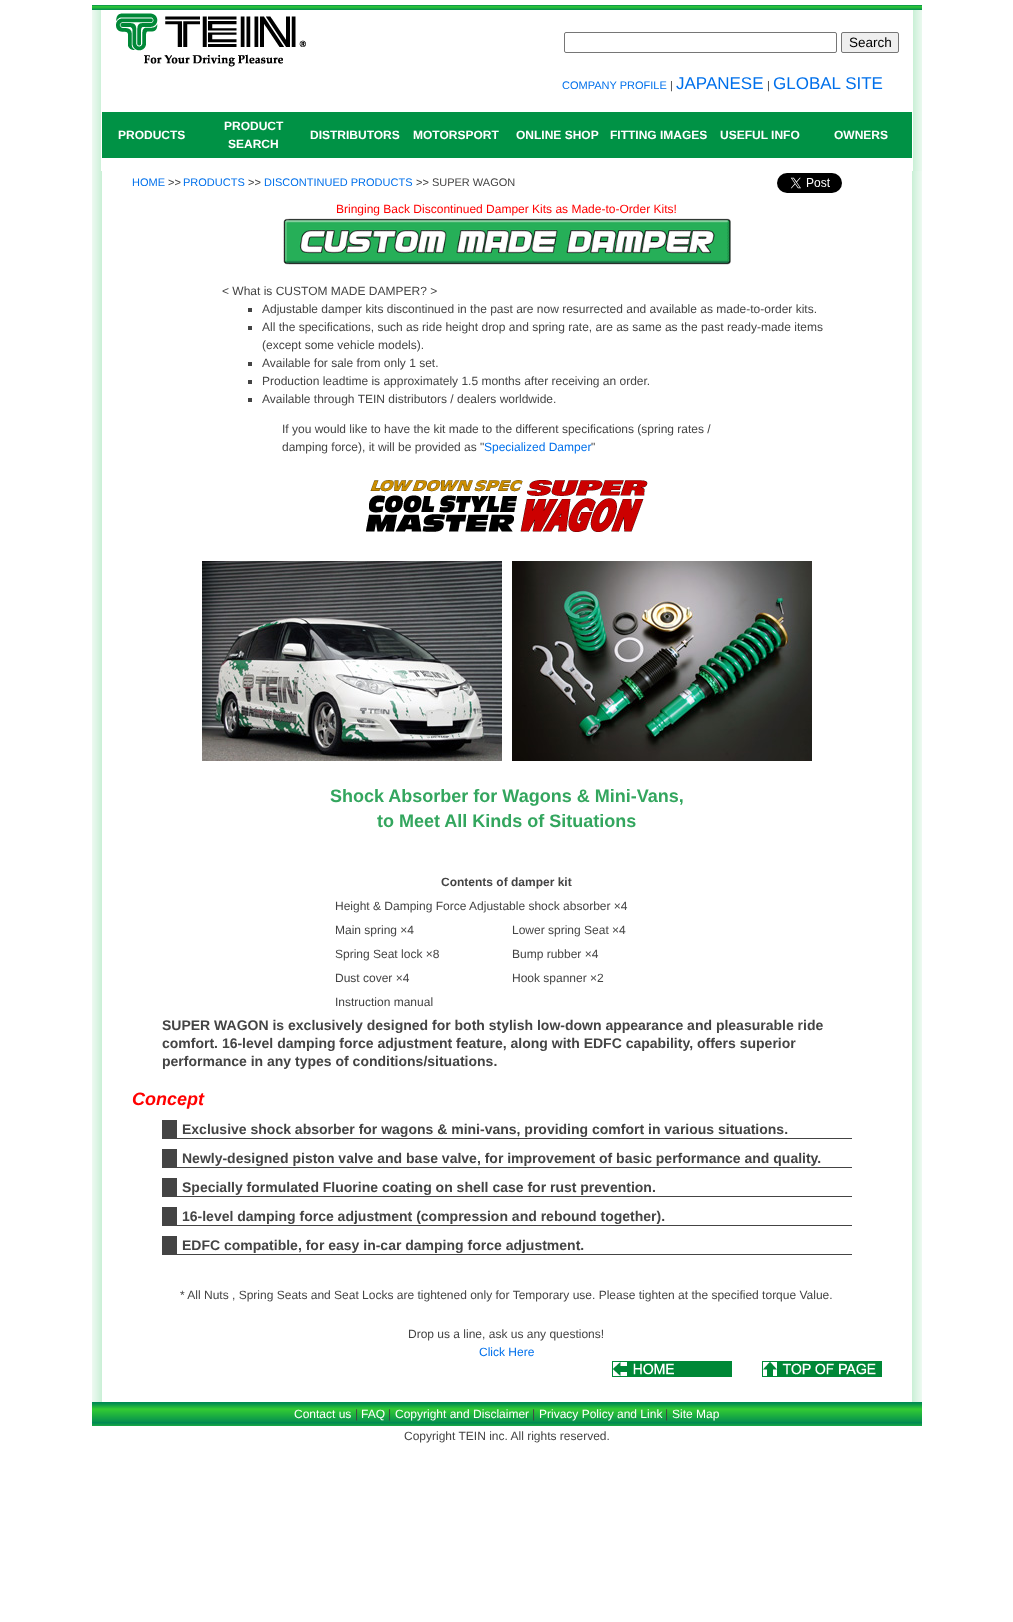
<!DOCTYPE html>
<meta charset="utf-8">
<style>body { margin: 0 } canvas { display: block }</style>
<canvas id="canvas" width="1013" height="1622"></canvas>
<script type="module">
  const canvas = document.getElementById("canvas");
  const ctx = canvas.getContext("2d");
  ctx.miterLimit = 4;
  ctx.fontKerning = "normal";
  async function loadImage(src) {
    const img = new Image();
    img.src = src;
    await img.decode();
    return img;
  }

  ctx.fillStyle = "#ffffff";
  ctx.fillRect(0, 0, 1013, 1622);
  ctx.drawImage(await loadImage("img1.png"), 92, 5, 830, 5);
  ctx.drawImage(await loadImage("img2.png"), 92, 10, 9, 161);
  ctx.drawImage(await loadImage("img3.png"), 116, 13, 190, 54);
  ctx.beginPath();
  ctx.roundRect(564.5, 32.5, 272, 20, 1.5);
  ctx.strokeStyle = "#767676";
  ctx.stroke();
  ctx.fillStyle = "#efefef";
  ctx.beginPath();
  ctx.roundRect(841.5, 32.5, 57, 20, 1.5);
  ctx.fill();
  ctx.stroke();
  ctx.font = "13.5px Liberation Sans";
  ctx.fillStyle = "#000000";
  ctx.fillText("Search", 849, 47);
  ctx.font = "11px Liberation Sans";
  ctx.fillStyle = "#0070eb";
  ctx.fillText("COMPANY PROFILE", 562, 89);
  ctx.fillStyle = "#444444";
  ctx.fillText("|", 670, 89);
  ctx.font = "17px Liberation Sans";
  ctx.fillStyle = "#0070eb";
  ctx.fillText("JAPANESE", 676, 89);
  ctx.font = "11px Liberation Sans";
  ctx.fillStyle = "#444444";
  ctx.fillText("|", 767, 89);
  ctx.font = "17px Liberation Sans";
  ctx.fillStyle = "#0070eb";
  ctx.fillText("GLOBAL SITE", 773, 89);
  ctx.fillStyle = "#009245";
  ctx.fillRect(102, 112, 810, 46);
  ctx.font = "bold 12px Liberation Sans";
  ctx.fillStyle = "#ffffff";
  ctx.fillText("PRODUCTS", 118, 139);
  ctx.fillText("PRODUCT", 224, 130);
  ctx.fillText("SEARCH", 228, 148);
  ctx.fillText("DISTRIBUTORS", 310, 139);
  ctx.fillText("MOTORSPORT", 413, 139);
  ctx.fillText("ONLINE SHOP", 516, 139);
  ctx.fillText("FITTING IMAGES", 610, 139);
  ctx.fillText("USEFUL INFO", 720, 139);
  ctx.fillText("OWNERS", 834, 139);
  ctx.drawImage(await loadImage("img4.png"), 913, 10, 9, 161);
  ctx.drawImage(await loadImage("img5.png"), 92, 171, 10, 1231);
  ctx.font = "11px Liberation Sans";
  ctx.fillStyle = "#0070eb";
  ctx.fillText("HOME", 132, 186);
  ctx.fillStyle = "#444444";
  ctx.fillText(">>", 168, 186);
  ctx.fillStyle = "#0070eb";
  ctx.fillText("PRODUCTS", 183, 186);
  ctx.fillStyle = "#444444";
  ctx.fillText(">>", 248, 186);
  ctx.fillStyle = "#0070eb";
  ctx.fillText("DISCONTINUED PRODUCTS", 264, 186);
  ctx.fillStyle = "#444444";
  ctx.fillText(">> SUPER WAGON", 416, 186);
  ctx.drawImage(await loadImage("img6.png"), 777, 173, 65, 20);
  ctx.font = "12px Liberation Sans";
  ctx.fillStyle = "#ff0000";
  ctx.fillText("Bringing Back Discontinued Damper Kits as Made-to-Order Kits!", 336, 213);
  ctx.drawImage(await loadImage("img7.png"), 283, 218, 448, 47);
  ctx.fillStyle = "#444444";
  ctx.fillText("< What is CUSTOM MADE DAMPER? >", 222, 295);
  ctx.fillRect(248, 308, 4, 4);
  ctx.fillText("Adjustable damper kits discontinued in the past are now resurrected and available as made-to-order kits.", 262, 313);
  ctx.fillRect(248, 326, 4, 4);
  ctx.fillText("All the specifications, such as ride height drop and spring rate, are as same as the past ready-made items", 262, 331);
  ctx.fillText("(except some vehicle models).", 262, 349);
  ctx.fillRect(248, 362, 4, 4);
  ctx.fillText("Available for sale from only 1 set.", 262, 367);
  ctx.fillRect(248, 380, 4, 4);
  ctx.fillText("Production leadtime is approximately 1.5 months after receiving an order.", 262, 385);
  ctx.fillRect(248, 398, 4, 4);
  ctx.fillText("Available through TEIN distributors / dealers worldwide.", 262, 403);
  ctx.fillText("If you would like to have the kit made to the different specifications (spring rates /", 282, 433);
  ctx.fillText("damping force), it will be provided as \"", 282, 451);
  ctx.fillStyle = "#0070eb";
  ctx.fillText("Specialized Damper", 484, 451);
  ctx.fillStyle = "#444444";
  ctx.fillText("\"", 591, 451);
  ctx.drawImage(await loadImage("img8.png"), 366, 480, 282, 52);
  ctx.drawImage(await loadImage("img9.png"), 202, 561, 300, 200);
  ctx.drawImage(await loadImage("img10.png"), 512, 561, 300, 200);
  ctx.font = "bold 18px Liberation Sans";
  ctx.fillStyle = "#33a65e";
  ctx.fillText("Shock Absorber for Wagons & Mini-Vans,", 330, 802);
  ctx.fillText("to Meet All Kinds of Situations", 377, 827);
  ctx.font = "bold 12px Liberation Sans";
  ctx.fillStyle = "#444444";
  ctx.fillText("Contents of damper kit", 441, 886);
  ctx.font = "12px Liberation Sans";
  ctx.fillText("Height & Damping Force Adjustable shock absorber ×4", 335, 910);
  ctx.fillText("Main spring ×4", 335, 934);
  ctx.fillText("Lower spring Seat ×4", 512, 934);
  ctx.fillText("Spring Seat lock ×8", 335, 958);
  ctx.fillText("Bump rubber ×4", 512, 958);
  ctx.fillText("Dust cover ×4", 335, 982);
  ctx.fillText("Hook spanner ×2", 512, 982);
  ctx.fillText("Instruction manual", 335, 1006);
  ctx.font = "bold 14px Liberation Sans";
  ctx.fillText("SUPER WAGON is exclusively designed for both stylish low-down appearance and pleasurable ride", 162, 1030);
  ctx.fillText("comfort. 16-level damping force adjustment feature, along with EDFC capability, offers superior", 162, 1048);
  ctx.fillText("performance in any types of conditions/situations.", 162, 1066);
  ctx.font = "italic bold 18px Liberation Sans";
  ctx.fillStyle = "#ff0000";
  ctx.fillText("Concept", 132, 1105);
  ctx.fillStyle = "#444444";
  ctx.fillRect(177, 1138, 675, 1);
  ctx.fillRect(162, 1120, 15, 19);
  ctx.font = "bold 14px Liberation Sans";
  ctx.fillText("Exclusive shock absorber for wagons & mini-vans, providing comfort in various situations.", 182, 1134);
  ctx.fillRect(177, 1167, 675, 1);
  ctx.fillRect(162, 1149, 15, 19);
  ctx.fillText("Newly-designed piston valve and base valve, for improvement of basic performance and quality.", 182, 1163);
  ctx.fillRect(177, 1196, 675, 1);
  ctx.fillRect(162, 1178, 15, 19);
  ctx.fillText("Specially formulated Fluorine coating on shell case for rust prevention.", 182, 1192);
  ctx.fillRect(177, 1225, 675, 1);
  ctx.fillRect(162, 1207, 15, 19);
  ctx.fillText("16-level damping force adjustment (compression and rebound together).", 182, 1221);
  ctx.fillRect(177, 1254, 675, 1);
  ctx.fillRect(162, 1236, 15, 19);
  ctx.fillText("EDFC compatible, for easy in-car damping force adjustment.", 182, 1250);
  ctx.font = "12px Liberation Sans";
  ctx.fillText("* All Nuts , Spring Seats and Seat Locks are tightened only for Temporary use. Please tighten at the specified torque Value.", 180, 1299);
  ctx.fillText("Drop us a line, ask us any questions!", 408, 1338);
  ctx.fillStyle = "#0070eb";
  ctx.fillText("Click Here", 479, 1356);
  ctx.drawImage(await loadImage("img11.png"), 612, 1361, 120, 16);
  ctx.drawImage(await loadImage("img12.png"), 762, 1361, 120, 16);
  ctx.drawImage(await loadImage("img13.png"), 912, 171, 10, 1231);
  ctx.drawImage(await loadImage("img14.png"), 92, 1402, 830, 24);
  ctx.fillStyle = "#ffffff";
  ctx.fillText("Contact us", 294, 1418);
  ctx.fillStyle = "#444444";
  ctx.fillText("|", 355, 1418);
  ctx.fillStyle = "#ffffff";
  ctx.fillText("FAQ", 361, 1418);
  ctx.fillStyle = "#444444";
  ctx.fillText("|", 388, 1418);
  ctx.fillStyle = "#ffffff";
  ctx.fillText("Copyright and Disclaimer", 395, 1418);
  ctx.fillStyle = "#444444";
  ctx.fillText("|", 532, 1418);
  ctx.fillStyle = "#ffffff";
  ctx.fillText("Privacy Policy and Link", 539, 1418);
  ctx.fillStyle = "#444444";
  ctx.fillText("|", 665, 1418);
  ctx.fillStyle = "#ffffff";
  ctx.fillText("Site Map", 672, 1418);
  ctx.fillStyle = "#444444";
  ctx.fillText("Copyright TEIN inc. All rights reserved.", 404, 1440);
</script>
